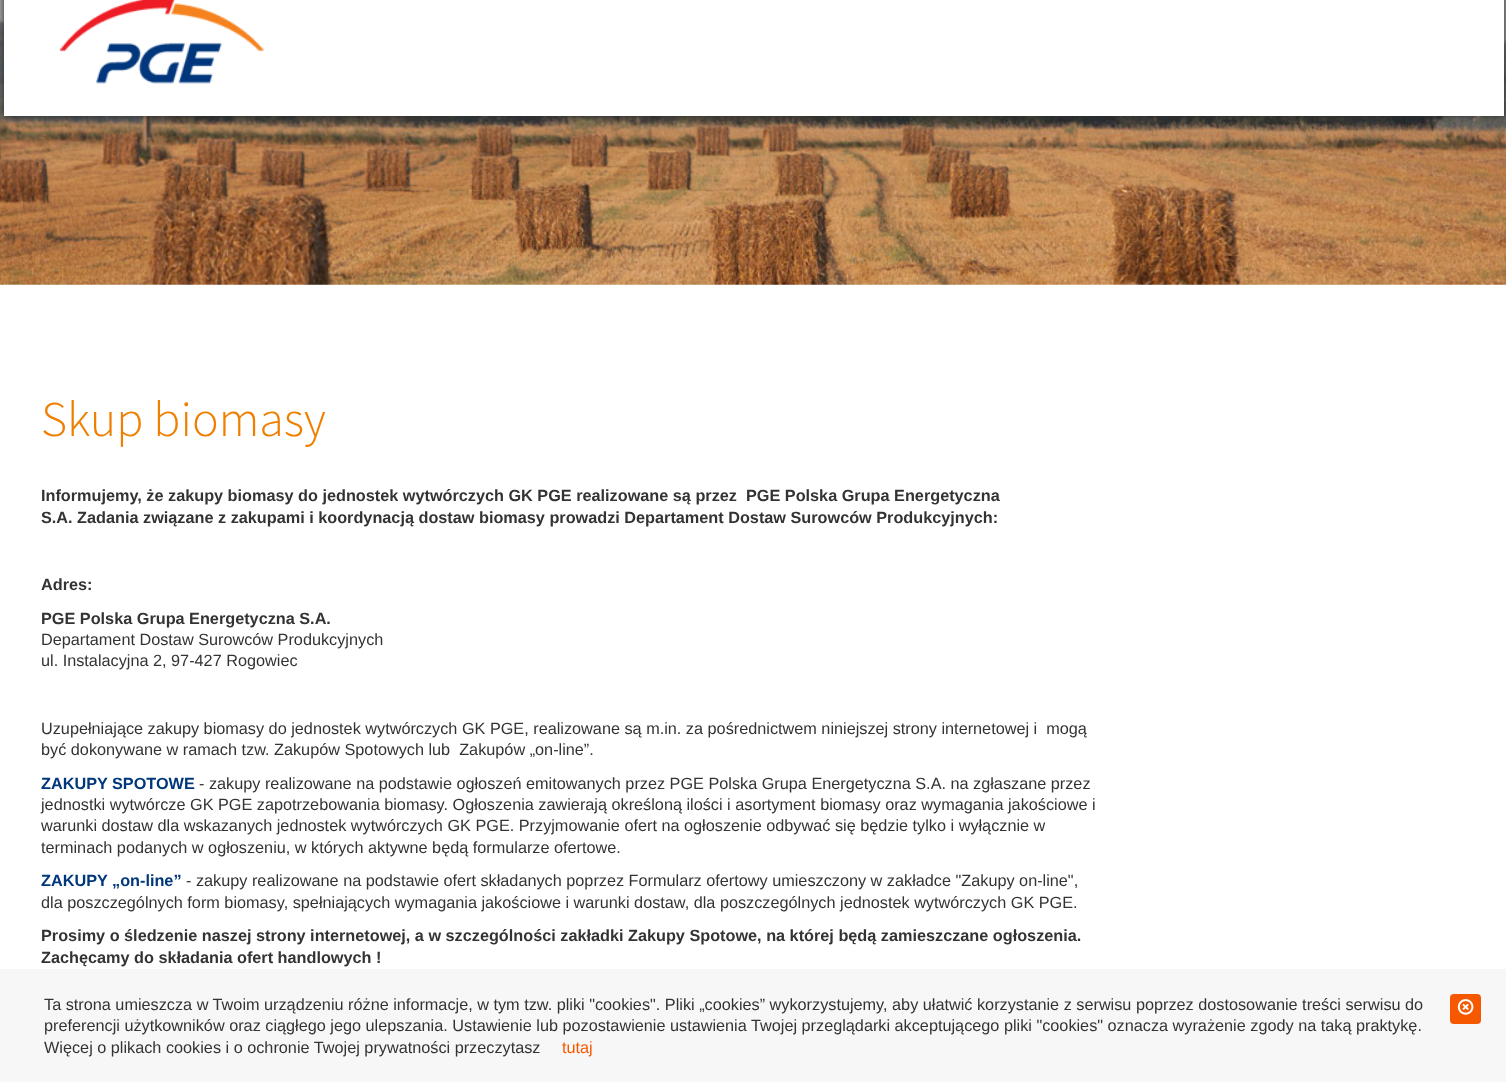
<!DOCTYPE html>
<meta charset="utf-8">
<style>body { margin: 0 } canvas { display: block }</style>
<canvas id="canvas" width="1506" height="1082"></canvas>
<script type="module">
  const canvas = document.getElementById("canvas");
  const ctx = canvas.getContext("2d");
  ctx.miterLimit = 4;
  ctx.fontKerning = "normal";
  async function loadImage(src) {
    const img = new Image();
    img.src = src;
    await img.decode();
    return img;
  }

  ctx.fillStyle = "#ffffff";
  ctx.fillRect(0, 0, 1506, 1082);
  ctx.drawImage(await loadImage("img1.png"), 0, 0, 1506, 285);
  ctx.fillStyle = "#2b2b2b";
  ctx.filter = "blur(3px)";
  ctx.beginPath();
  ctx.rect(4, -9, 1500, 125);
  ctx.fill();
  ctx.filter = "none";
  ctx.fillStyle = "#ffffff";
  ctx.fillRect(4, 0, 1500, 116);
  ctx.drawImage(await loadImage("img2.png"), 60, 0, 204, 84);
  ctx.font = "300 50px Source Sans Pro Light";
  ctx.fillStyle = "#ef7f00";
  ctx.fillText("Skup biomasy", 41, 436);
  ctx.font = "bold 16.25px Liberation Sans";
  ctx.fillStyle = "#333333";
  ctx.fillText("Informujemy, że zakupy biomasy do jednostek wytwórczych GK PGE realizowane są przez  PGE Polska Grupa Energetyczna", 41, 501);
  ctx.fillText("S.A. Zadania związane z zakupami i koordynacją dostaw biomasy prowadzi Departament Dostaw Surowców Produkcyjnych:", 41, 523);
  ctx.fillText("Adres:", 41, 590);
  ctx.fillText("PGE Polska Grupa Energetyczna S.A.", 41, 624);
  ctx.font = "16.25px Liberation Sans";
  ctx.fillText("Departament Dostaw Surowców Produkcyjnych", 41, 645);
  ctx.fillText("ul. Instalacyjna 2, 97-427 Rogowiec", 41, 666);
  ctx.fillText("Uzupełniające zakupy biomasy do jednostek wytwórczych GK PGE, realizowane są m.in. za pośrednictwem niniejszej strony internetowej i  mogą", 41, 734);
  ctx.fillText("być dokonywane w ramach tzw. Zakupów Spotowych lub  Zakupów „on-line”.", 41, 755);
  ctx.font = "bold 16.25px Liberation Sans";
  ctx.fillStyle = "#00377b";
  ctx.fillText("ZAKUPY SPOTOWE", 41, 789);
  ctx.font = "16.25px Liberation Sans";
  ctx.fillStyle = "#333333";
  ctx.fillText("- zakupy realizowane na podstawie ogłoszeń emitowanych przez PGE Polska Grupa Energetyczna S.A. na zgłaszane przez", 199, 789);
  ctx.fillText("jednostki wytwórcze GK PGE zapotrzebowania biomasy. Ogłoszenia zawierają określoną ilości i asortyment biomasy oraz wymagania jakościowe i", 41, 810);
  ctx.fillText("warunki dostaw dla wskazanych jednostek wytwórczych GK PGE. Przyjmowanie ofert na ogłoszenie odbywać się będzie tylko i wyłącznie w", 41, 831);
  ctx.fillText("terminach podanych w ogłoszeniu, w których aktywne będą formularze ofertowe.", 41, 853);
  ctx.font = "bold 16.25px Liberation Sans";
  ctx.fillStyle = "#00377b";
  ctx.fillText("ZAKUPY „on-line”", 41, 886);
  ctx.font = "16.25px Liberation Sans";
  ctx.fillStyle = "#333333";
  ctx.fillText("- zakupy realizowane na podstawie ofert składanych poprzez Formularz ofertowy umieszczony w zakładce \"Zakupy on-line\",", 186, 886);
  ctx.fillText("dla poszczególnych form biomasy, spełniających wymagania jakościowe i warunki dostaw, dla poszczególnych jednostek wytwórczych GK PGE.", 41, 908);
  ctx.font = "bold 16.25px Liberation Sans";
  ctx.fillText("Prosimy o śledzenie naszej strony internetowej, a w szczególności zakładki Zakupy Spotowe, na której będą zamieszczane ogłoszenia.", 41, 941);
  ctx.fillText("Zachęcamy do składania ofert handlowych !", 41, 963);
  ctx.fillStyle = "#f7f7f7";
  ctx.fillRect(0, 969, 1506, 113);
  ctx.font = "16.25px Liberation Sans";
  ctx.fillStyle = "#333333";
  ctx.fillText("Ta strona umieszcza w Twoim urządzeniu różne informacje, w tym tzw. pliki \"cookies\". Pliki „cookies” wykorzystujemy, aby ułatwić korzystanie z serwisu poprzez dostosowanie treści serwisu do", 44, 1010);
  ctx.fillText("preferencji użytkowników oraz ciągłego jego ulepszania. Ustawienie lub pozostawienie ustawienia Twojej przeglądarki akceptującego pliki \"cookies\" oznacza wyrażenie zgody na taką praktykę.", 44, 1031);
  ctx.fillText("Więcej o plikach cookies i o ochronie Twojej prywatności przeczytasz", 44, 1053);
  ctx.fillStyle = "#f65800";
  ctx.fillText("tutaj", 562, 1053);
  ctx.beginPath();
  ctx.roundRect(1450, 994, 31, 30, 4);
  ctx.fill();
  ctx.drawImage(await loadImage("img3.png"), 1457, 999, 17, 16);
</script>
